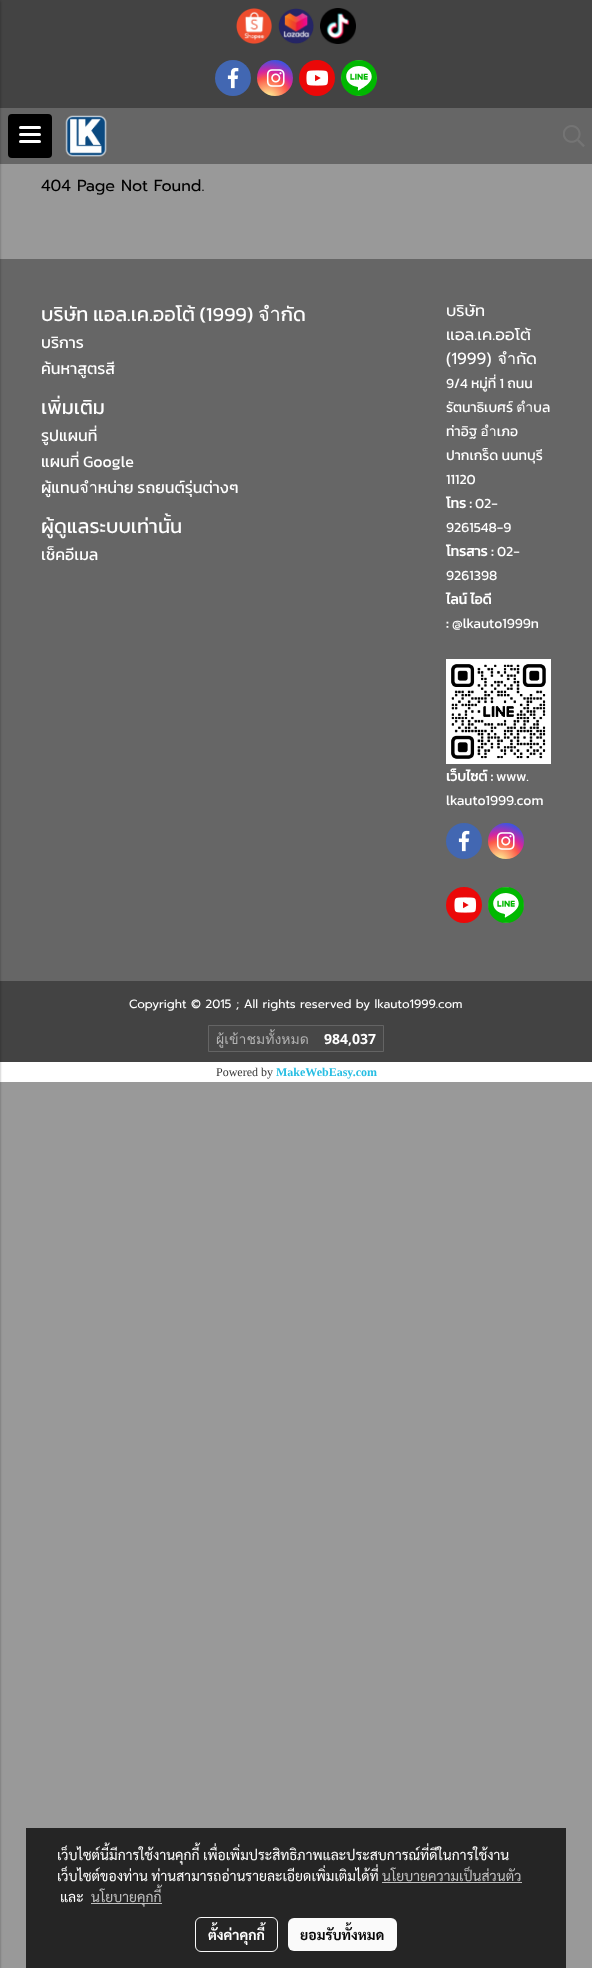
<!DOCTYPE html>
<meta charset="utf-8">
<style>body { margin: 0 } canvas { display: block }</style>
<canvas id="canvas" width="592" height="1968"></canvas>
<script type="module">
  const canvas = document.getElementById("canvas");
  const ctx = canvas.getContext("2d");
  ctx.miterLimit = 4;
  ctx.fontKerning = "normal";
  async function loadImage(src) {
    const img = new Image();
    img.src = src;
    await img.decode();
    return img;
  }
  let gradient;

  ctx.fillStyle = "#999999";
  ctx.fillRect(0, 0, 592, 1968);
  ctx.fillStyle = "#666666";
  ctx.fillRect(0, 108, 592, 56);
  ctx.fillStyle = "#434343";
  ctx.fillRect(0, 0, 592, 108);
  ctx.drawImage(await loadImage("img1.png"), 236, 8, 36, 36);
  ctx.drawImage(await loadImage("img2.png"), 278, 8, 36, 36);
  ctx.drawImage(await loadImage("img3.png"), 320, 8, 36, 36);
  ctx.fillStyle = "#4267b2";
  ctx.beginPath();
  ctx.arc(233, 78, 18, 0, Math.PI * 2);
  ctx.fill();
  ctx.drawImage(await loadImage("img4.png"), 227, 67, 12, 22);
  gradient = ctx.createRadialGradient(268, 99, 0, 268, 99, 46);
  gradient.addColorStop(0, "#fdf497");
  gradient.addColorStop(0.05, "#fdf497");
  gradient.addColorStop(0.45, "#fd5949");
  gradient.addColorStop(0.6, "#d6249f");
  gradient.addColorStop(0.9, "#285aeb");
  ctx.fillStyle = gradient;
  ctx.beginPath();
  ctx.arc(275, 78, 18, 0, Math.PI * 2);
  ctx.fill();
  ctx.drawImage(await loadImage("img5.png"), 266, 69, 19, 18);
  ctx.fillStyle = "#eb0808";
  ctx.beginPath();
  ctx.arc(317, 78, 18, 0, Math.PI * 2);
  ctx.fill();
  ctx.drawImage(await loadImage("img6.png"), 306, 70, 23, 16);
  ctx.fillStyle = "#00b800";
  ctx.beginPath();
  ctx.arc(359, 78, 18, 0, Math.PI * 2);
  ctx.fill();
  ctx.drawImage(await loadImage("img7.png"), 341, 60, 36, 36);
  ctx.fillStyle = "#666666";
  ctx.fillRect(0, 259, 592, 722);
  ctx.fillStyle = "#434343";
  ctx.fillRect(0, 981, 592, 81);
  ctx.fillStyle = "#ffffff";
  ctx.fillRect(0, 1062, 592, 20);
  ctx.fillStyle = "rgba(0, 0, 0, 0.24)";
  ctx.filter = "blur(1px)";
  ctx.beginPath();
  ctx.rect(-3, 1, 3, 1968);
  ctx.fill();
  ctx.filter = "none";
  ctx.fillStyle = "rgba(0, 0, 0, 0.12)";
  ctx.filter = "blur(1.5px)";
  ctx.beginPath();
  ctx.rect(-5, 1, 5, 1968);
  ctx.fill();
  ctx.filter = "none";
  ctx.fillStyle = "#000000";
  ctx.beginPath();
  ctx.roundRect(8, 114, 44, 44, 4);
  ctx.fill();
  ctx.fillStyle = "#ffffff";
  ctx.beginPath();
  ctx.roundRect(19, 133, 22, 3, 1.5);
  ctx.fill();
  ctx.beginPath();
  ctx.roundRect(19, 126, 22, 3, 1.5);
  ctx.fill();
  ctx.beginPath();
  ctx.roundRect(19, 140, 22, 3, 1.5);
  ctx.fill();
  ctx.drawImage(await loadImage("img8.png"), 65, 115, 42, 42);
  ctx.drawImage(await loadImage("img9.png"), 563, 125, 22, 22);
  ctx.font = "16px Prompt";
  ctx.fillStyle = "#000000";
  ctx.fillText("404 Page Not Found.", 41, 191);
  ctx.font = "20px Kanit";
  ctx.fillStyle = "#ffffff";
  ctx.fillText("บริษัท แอล.เค.ออโต้ (1999) จำกัด", 41, 321);
  ctx.font = "16px Kanit";
  ctx.fillText("บริการ", 41, 348);
  ctx.fillText("ค้นหาสูตรสี", 41, 374);
  ctx.font = "20px Kanit";
  ctx.fillText("เพิ่มเติม", 41, 414);
  ctx.font = "16px Kanit";
  ctx.fillText("รูปแผนที่", 41, 441);
  ctx.fillText("แผนที่ Google", 41, 467);
  ctx.fillText("ผู้แทนจำหน่าย รถยนต์รุ่นต่างๆ", 41, 493);
  ctx.font = "20px Kanit";
  ctx.fillText("ผู้ดูแลระบบเท่านั้น", 41, 533);
  ctx.font = "16px Kanit";
  ctx.fillText("เช็คอีเมล", 41, 560);
  ctx.font = "16px Prompt";
  ctx.fillText("บริษัท", 446, 316);
  ctx.fillText("แอล.เค.ออโต้", 446, 340);
  ctx.fillText("(1999) จำกัด", 446, 364);
  ctx.font = "14px Kanit";
  ctx.fillText("9/4 หมู่ที่ 1 ถนน", 446, 388);
  ctx.fillText("รัตนาธิเบศร์ ตำบล", 446, 412);
  ctx.fillText("ท่าอิฐ อำเภอ", 446, 436);
  ctx.fillText("ปากเกร็ด นนทบุรี", 446, 460);
  ctx.fillText("11120", 446, 484);
  ctx.font = "bold 14px Kanit";
  ctx.fillText("โทร :", 446, 508);
  ctx.font = "14px Kanit";
  ctx.fillText("02-", 475, 508);
  ctx.fillText("9261548-9", 446, 532);
  ctx.font = "bold 14px Kanit";
  ctx.fillText("โทรสาร :", 446, 556);
  ctx.font = "14px Kanit";
  ctx.fillText("02-", 497, 556);
  ctx.fillText("9261398", 446, 580);
  ctx.font = "bold 14px Kanit";
  ctx.fillText("ไลน์ ไอดี", 446, 604);
  ctx.fillText(":", 446, 628);
  ctx.font = "14px Kanit";
  ctx.fillText("@lkauto1999n", 452, 628);
  ctx.drawImage(await loadImage("img10.png"), 446, 659, 105, 105);
  ctx.font = "bold 14px Kanit";
  ctx.fillText("เว็บไซต์ :", 446, 781);
  ctx.font = "14px Kanit";
  ctx.fillText("www.", 496, 781);
  ctx.fillText("lkauto1999.com", 446, 805);
  ctx.fillStyle = "#4267b2";
  ctx.beginPath();
  ctx.arc(464, 841, 18, 0, Math.PI * 2);
  ctx.fill();
  ctx.drawImage(await loadImage("img4.png"), 458, 830, 12, 22);
  gradient = ctx.createRadialGradient(499, 862, 0, 499, 862, 46);
  gradient.addColorStop(0, "#fdf497");
  gradient.addColorStop(0.05, "#fdf497");
  gradient.addColorStop(0.45, "#fd5949");
  gradient.addColorStop(0.6, "#d6249f");
  gradient.addColorStop(0.9, "#285aeb");
  ctx.fillStyle = gradient;
  ctx.beginPath();
  ctx.arc(506, 841, 18, 0, Math.PI * 2);
  ctx.fill();
  ctx.drawImage(await loadImage("img11.png"), 496, 832, 19, 18);
  ctx.fillStyle = "#eb0808";
  ctx.beginPath();
  ctx.arc(464, 905, 18, 0, Math.PI * 2);
  ctx.fill();
  ctx.drawImage(await loadImage("img6.png"), 454, 897, 23, 16);
  ctx.fillStyle = "#00b800";
  ctx.beginPath();
  ctx.arc(506, 905, 18, 0, Math.PI * 2);
  ctx.fill();
  ctx.drawImage(await loadImage("img12.png"), 488, 887, 36, 36);
  ctx.font = "12px Prompt";
  ctx.fillStyle = "#ffffff";
  ctx.fillText("Copyright © 2015 ; All rights reserved by lkauto1999.com", 129, 1008);
  ctx.fillStyle = "#474747";
  ctx.beginPath();
  ctx.rect(208.5, 1025.5, 175, 26);
  ctx.fill();
  ctx.strokeStyle = "#646464";
  ctx.stroke();
  ctx.font = "14px Loma";
  ctx.fillStyle = "#b2b2b2";
  ctx.fillText("ผู้เข้าชมทั้งหมด", 216, 1044);
  ctx.font = "bold 14px Open Sans";
  ctx.fillStyle = "#ffffff";
  ctx.fillText("984,037", 324, 1044);
  ctx.font = "12px Liberation Serif";
  ctx.fillStyle = "#353535";
  ctx.fillText("Powered by", 216, 1076);
  ctx.font = "bold 12px Liberation Serif";
  ctx.fillStyle = "#28bee3";
  ctx.fillText("MakeWebEasy.com", 276, 1076);
  ctx.fillStyle = "#252525";
  ctx.fillRect(26, 1828, 540, 140);
  ctx.font = "14px Sarabun";
  ctx.fillStyle = "#ffffff";
  ctx.fillText("เว็บไซต์นี้มีการใช้งานคุกกี้ เพื่อเพิ่มประสิทธิภาพและประสบการณ์ที่ดีในการใช้งาน", 57, 1860);
  ctx.fillText("เว็บไซต์ของท่าน ท่านสามารถอ่านรายละเอียดเพิ่มเติมได้ที่", 57, 1881);
  ctx.fillStyle = "#c0c0c0";
  ctx.fillText("นโยบายความเป็นส่วนตัว", 382, 1881);
  ctx.fillRect(382, 1882, 140, 1);
  ctx.fillStyle = "#ffffff";
  ctx.fillText("และ", 60, 1902);
  ctx.fillStyle = "#c0c0c0";
  ctx.fillRect(91, 1903, 71, 1);
  ctx.fillText("นโยบายคุกกี้", 91, 1902);
  ctx.beginPath();
  ctx.roundRect(195.5, 1917.5, 82, 34, 5.5);
  ctx.strokeStyle = "#fafafa";
  ctx.stroke();
  ctx.font = "bold 14px Sarabun";
  ctx.fillStyle = "#ffffff";
  ctx.fillText("ตั้งค่าคุกกี้", 208, 1940);
  ctx.fillStyle = "#fafafa";
  ctx.beginPath();
  ctx.roundRect(288, 1918, 109, 33, 6);
  ctx.fill();
  ctx.fillStyle = "#080808";
  ctx.fillText("ยอมรับทั้งหมด", 300, 1940);
</script>
